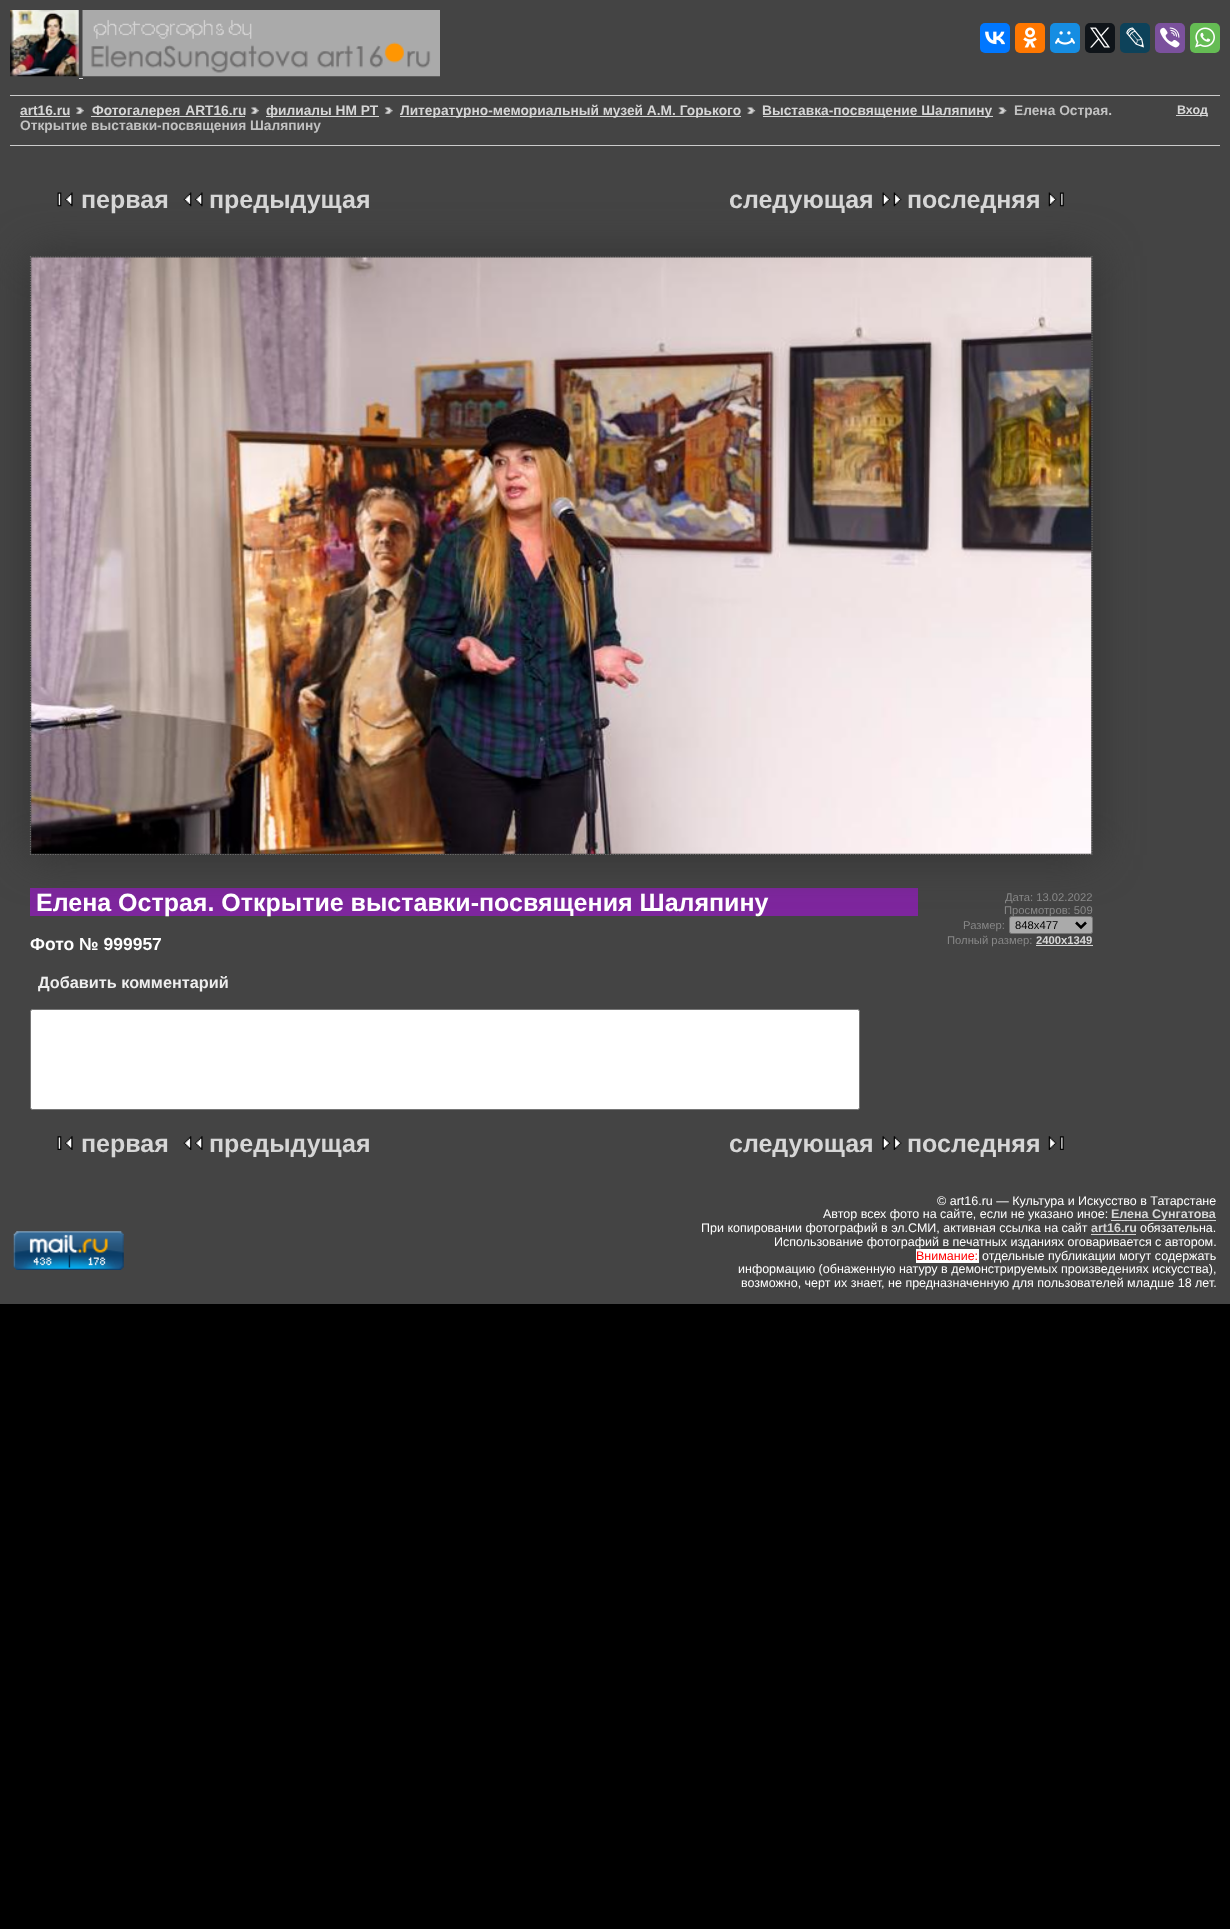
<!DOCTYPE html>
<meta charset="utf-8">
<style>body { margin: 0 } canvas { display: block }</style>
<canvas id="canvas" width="1230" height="1929"></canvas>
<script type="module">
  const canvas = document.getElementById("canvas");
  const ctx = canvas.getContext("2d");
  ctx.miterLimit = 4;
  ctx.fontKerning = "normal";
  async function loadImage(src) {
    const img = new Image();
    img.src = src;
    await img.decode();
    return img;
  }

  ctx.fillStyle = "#000000";
  ctx.fillRect(0, 0, 1230, 1929);
  ctx.fillStyle = "#444444";
  ctx.fillRect(0, 0, 1230, 1304);
  ctx.drawImage(await loadImage("img1.png"), 10, 10, 69, 67);
  ctx.drawImage(await loadImage("img2.png"), 82, 10, 358, 67);
  ctx.fillStyle = "#0077ff";
  ctx.beginPath();
  ctx.roundRect(980, 23, 30, 30, 5);
  ctx.fill();
  ctx.drawImage(await loadImage("img3.png"), 985, 31, 20, 14);
  ctx.fillStyle = "#ff7700";
  ctx.beginPath();
  ctx.roundRect(1015, 23, 30, 30, 5);
  ctx.fill();
  ctx.drawImage(await loadImage("img4.png"), 1023, 27, 14, 21);
  ctx.fillStyle = "#168de2";
  ctx.beginPath();
  ctx.roundRect(1050, 23, 30, 30, 5);
  ctx.fill();
  ctx.drawImage(await loadImage("img5.png"), 1055, 31, 20, 14);
  ctx.fillStyle = "#0f1419";
  ctx.beginPath();
  ctx.roundRect(1085, 23, 30, 30, 5);
  ctx.fill();
  ctx.drawImage(await loadImage("img6.png"), 1090, 27, 20, 21);
  ctx.fillStyle = "#0d425a";
  ctx.beginPath();
  ctx.roundRect(1120, 23, 30, 30, 5);
  ctx.fill();
  ctx.drawImage(await loadImage("img7.png"), 1126, 27, 18, 21);
  ctx.fillStyle = "#7b519d";
  ctx.beginPath();
  ctx.roundRect(1155, 23, 30, 30, 5);
  ctx.fill();
  ctx.drawImage(await loadImage("img8.png"), 1160, 27, 20, 21);
  ctx.fillStyle = "#65bc54";
  ctx.beginPath();
  ctx.roundRect(1190, 23, 30, 30, 5);
  ctx.fill();
  ctx.drawImage(await loadImage("img9.png"), 1195, 27, 20, 21);
  ctx.fillStyle = "#d6d6d6";
  ctx.fillRect(79, 78, 4, 1);
  ctx.fillStyle = "#cccccc";
  ctx.fillRect(10, 95, 1210, 1);
  ctx.fillRect(10, 145, 1210, 1);
  ctx.font = "bold 13.75px Liberation Sans";
  ctx.fillStyle = "#d6d6d6";
  ctx.fillText("art16.ru", 20, 115);
  ctx.fillRect(20, 116, 50, 1);
  ctx.drawImage(await loadImage("img10.png"), 76, 107, 8, 7);
  ctx.fillRect(91, 116, 154, 1);
  ctx.wordSpacing = "1px";
  ctx.fillText("Фотогалерея ART16.ru", 92, 115);
  ctx.drawImage(await loadImage("img10.png"), 251, 107, 8, 7);
  ctx.fillRect(266, 116, 113, 1);
  ctx.wordSpacing = "0px";
  ctx.fillText("филиалы НМ РТ", 266, 115);
  ctx.drawImage(await loadImage("img11.png"), 384, 107, 9, 7);
  ctx.fillRect(400, 116, 341, 1);
  ctx.fillText("Литературно-мемориальный музей А.М. Горького", 400, 115);
  ctx.drawImage(await loadImage("img12.png"), 747, 107, 9, 7);
  ctx.fillRect(763, 116, 230, 1);
  ctx.fillText("Выставка-посвящение Шаляпину", 762, 115);
  ctx.drawImage(await loadImage("img13.png"), 998, 107, 9, 7);
  ctx.fillStyle = "#c2c2c2";
  ctx.fillText("Елена Острая.", 1014, 115);
  ctx.fillText("Открытие выставки-посвящения Шаляпину", 20, 130);
  ctx.fillStyle = "#d6d6d6";
  ctx.fillRect(1176, 115, 32, 1);
  ctx.font = "bold 12.5px Liberation Sans";
  ctx.fillText("Вход", 1177, 114);
  ctx.drawImage(await loadImage("img15.png"), 57, 192, 16, 15);
  ctx.drawImage(await loadImage("img16.png"), 183, 192, 20, 15);
  ctx.drawImage(await loadImage("img17.png"), 882, 192, 20, 15);
  ctx.drawImage(await loadImage("img18.png"), 1048, 192, 16, 15);
  ctx.fillStyle = "#7e269e";
  ctx.fillRect(30, 888, 888, 28);
  ctx.font = "11.25px Liberation Sans";
  ctx.fillStyle = "#888888";
  ctx.fillText("Просмотров: 509", 1004, 914);
  ctx.fillStyle = "#aaaaaa";
  ctx.beginPath();
  ctx.roundRect(1009.5, 916.5, 83, 17, 2);
  ctx.fill();
  ctx.strokeStyle = "#767676";
  ctx.stroke();
  ctx.beginPath();
  ctx.moveTo(1076, 922.5);
  ctx.lineTo(1081, 927.5);
  ctx.lineTo(1086, 922.5);
  ctx.strokeStyle = "#000000";
  ctx.lineWidth = 2.5;
  ctx.stroke();
  ctx.fillStyle = "#323232";
  ctx.filter = "blur(22.5px)";
  ctx.beginPath();
  ctx.rect(30, 256, 1063, 599);
  ctx.fill();
  ctx.filter = "none";
  ctx.beginPath();
  ctx.moveTo(30, 257);
  ctx.lineTo(1092.5, 257);
  ctx.strokeStyle = "#6d6c6c";
  ctx.lineWidth = 1.2;
  ctx.setLineDash([1.25, 1.25]);
  ctx.stroke();
  ctx.beginPath();
  ctx.moveTo(1092, 256);
  ctx.lineTo(1092, 855);
  ctx.stroke();
  ctx.beginPath();
  ctx.moveTo(30, 854.5);
  ctx.lineTo(1092.5, 854.5);
  ctx.stroke();
  ctx.beginPath();
  ctx.moveTo(30.5, 256);
  ctx.lineTo(30.5, 855);
  ctx.stroke();
  ctx.drawImage(await loadImage("img14.png"), 31, 257, 1061, 597);
  ctx.font = "bold 25px Liberation Sans";
  ctx.fillStyle = "#d6d6d6";
  ctx.fillText("первая", 81, 208);
  ctx.fillText("предыдущая", 209, 208);
  ctx.fillText("следующая", 729, 208);
  ctx.fillText("последняя", 907, 208);
  ctx.fillStyle = "#ffffff";
  ctx.fillText("Елена Острая. Открытие выставки-посвящения Шаляпину", 36, 911);
  ctx.font = "bold 17.5px Liberation Sans";
  ctx.fillText("Фото № 999957", 30, 950);
  ctx.font = "11.25px Liberation Sans";
  ctx.fillStyle = "#888888";
  ctx.fillText("Дата: 13.02.2022", 1005, 901);
  ctx.fillText("Размер:", 963, 929);
  ctx.fillStyle = "#000000";
  ctx.fillText("848x477", 1015, 929);
  ctx.fillStyle = "#888888";
  ctx.fillText("Полный размер:", 947, 944);
  ctx.font = "bold 11.25px Liberation Sans";
  ctx.fillStyle = "#d6d6d6";
  ctx.fillText("2400x1349", 1036, 944);
  ctx.fillRect(1036, 945, 57, 1);
  ctx.font = "bold 16.25px Liberation Sans";
  ctx.fillStyle = "#eeeeee";
  ctx.fillText("Добавить комментарий", 38, 988);
  ctx.fillStyle = "#ffffff";
  ctx.beginPath();
  ctx.roundRect(30.5, 1009.5, 829, 100, 2);
  ctx.fill();
  ctx.strokeStyle = "#767676";
  ctx.lineWidth = 1;
  ctx.setLineDash([]);
  ctx.stroke();
  ctx.drawImage(await loadImage("img19.png"), 57, 1136, 16, 14);
  ctx.font = "bold 25px Liberation Sans";
  ctx.fillStyle = "#d6d6d6";
  ctx.fillText("первая", 81, 1152);
  ctx.drawImage(await loadImage("img20.png"), 183, 1136, 20, 14);
  ctx.fillText("предыдущая", 209, 1152);
  ctx.fillText("следующая", 729, 1152);
  ctx.drawImage(await loadImage("img21.png"), 882, 1136, 20, 14);
  ctx.fillText("последняя", 907, 1152);
  ctx.drawImage(await loadImage("img22.png"), 1048, 1136, 16, 14);
  ctx.drawImage(await loadImage("img23.png"), 13, 1231, 111, 39);
  ctx.font = "12.5px Liberation Sans";
  ctx.fillStyle = "#ffffff";
  ctx.fillText("© art16.ru — Культура и Искусство в Татарстане", 937, 1205);
  ctx.fillText("Автор всех фото на сайте, если не указано иное:", 823, 1218);
  ctx.fillStyle = "#d6d6d6";
  ctx.fillRect(1111, 1220, 105, 1);
  ctx.font = "bold 12.5px Liberation Sans";
  ctx.fillText("Елена Сунгатова", 1111, 1218);
  ctx.font = "12.5px Liberation Sans";
  ctx.fillStyle = "#ffffff";
  ctx.fillText("При копировании фотографий в эл.СМИ, активная ссылка на сайт", 701, 1232);
  ctx.font = "bold 12.5px Liberation Sans";
  ctx.fillStyle = "#d6d6d6";
  ctx.fillText("art16.ru", 1091, 1232);
  ctx.fillRect(1091, 1234, 45, 1);
  ctx.font = "12.5px Liberation Sans";
  ctx.fillStyle = "#ffffff";
  ctx.fillText("обязательна.", 1140, 1232);
  ctx.fillText("Использование фотографий в печатных изданиях оговаривается с автором.", 774, 1246);
  ctx.fillRect(916, 1249, 63, 14);
  ctx.fillStyle = "#ff0000";
  ctx.fillText("Внимание:", 916, 1260);
  ctx.fillStyle = "#ffffff";
  ctx.fillText("отдельные публикации могут содержать", 982, 1260);
  ctx.fillText("информацию (обнаженную натуру в демонстрируемых произведениях искусства),", 738, 1273);
  ctx.fillText("возможно, черт их знает, не предназначенную для пользователей младше 18 лет.", 741, 1287);
</script>
